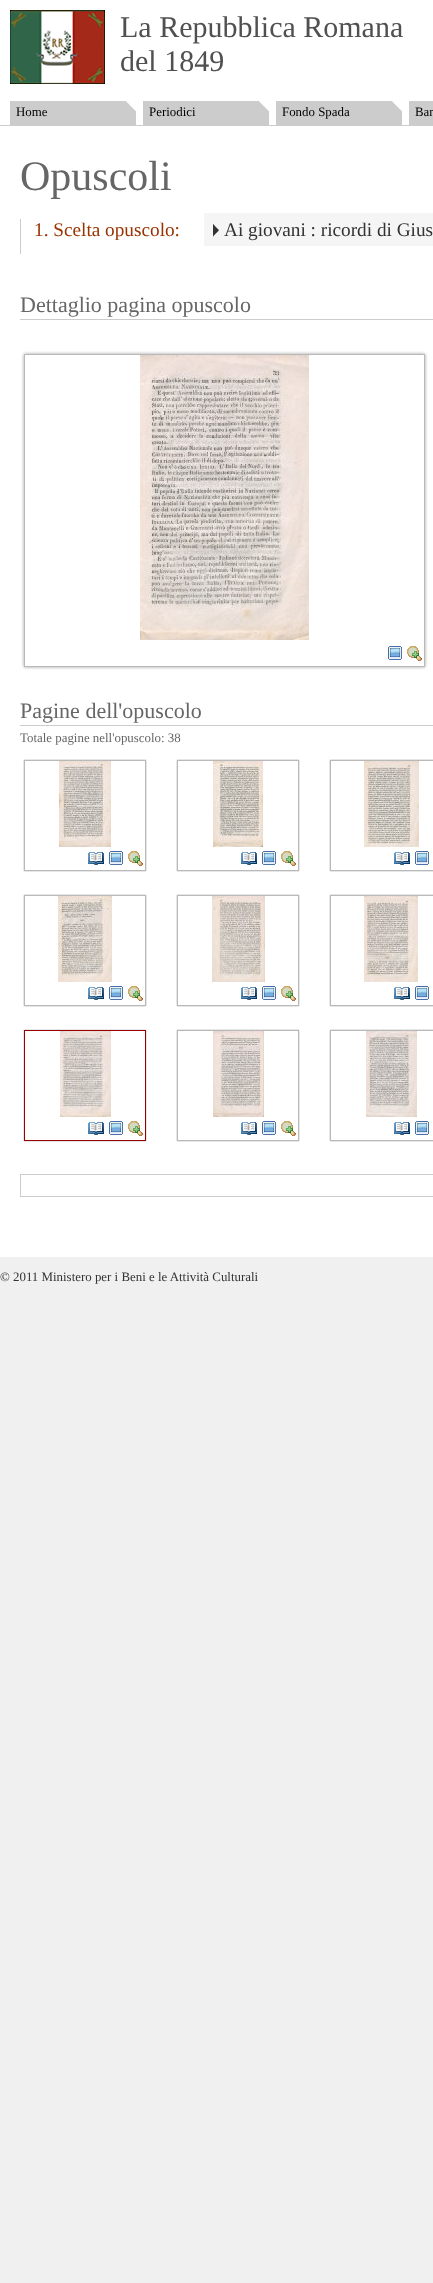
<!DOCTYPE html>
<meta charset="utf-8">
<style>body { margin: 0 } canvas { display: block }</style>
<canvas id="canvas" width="433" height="2283"></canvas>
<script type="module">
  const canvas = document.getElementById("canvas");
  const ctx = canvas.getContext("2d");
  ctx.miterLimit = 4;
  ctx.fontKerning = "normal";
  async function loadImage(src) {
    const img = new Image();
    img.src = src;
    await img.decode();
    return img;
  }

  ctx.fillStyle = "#f0f0f0";
  ctx.fillRect(0, 0, 433, 2283);
  ctx.fillStyle = "#ffffff";
  ctx.fillRect(0, 0, 433, 1257);
  ctx.drawImage(await loadImage("img1.png"), 10, 10, 95, 74);
  ctx.fillStyle = "#cccccc";
  ctx.fillRect(0, 125, 433, 1);
  ctx.font = "30px Liberation Serif";
  ctx.fillStyle = "#505050";
  ctx.fillText("La Repubblica Romana", 120, 37);
  ctx.fillText("del 1849", 120, 71);
  ctx.drawImage(await loadImage("img2.png"), 10, 101, 126, 24);
  ctx.font = "12.9px Liberation Serif";
  ctx.fillStyle = "#000000";
  ctx.fillText("Home", 16, 116);
  ctx.drawImage(await loadImage("img2.png"), 143, 101, 126, 24);
  ctx.fillText("Periodici", 149, 116);
  ctx.drawImage(await loadImage("img2.png"), 276, 101, 126, 24);
  ctx.fillText("Fondo Spada", 282, 116);
  ctx.fillStyle = "#cccccc";
  ctx.fillRect(409, 101, 24, 24);
  ctx.fillStyle = "#000000";
  ctx.fillText("Ban", 415, 116);
  ctx.font = "42px Liberation Serif";
  ctx.fillStyle = "#666666";
  ctx.fillText("Opuscoli", 20, 190);
  ctx.fillStyle = "#cccccc";
  ctx.fillRect(20, 219, 1, 35);
  ctx.font = "19.25px Liberation Serif";
  ctx.fillStyle = "#993300";
  ctx.fillText("1. Scelta opuscolo:", 34, 236);
  ctx.fillStyle = "#f5f5f5";
  ctx.fillRect(204, 213, 229, 33);
  ctx.drawImage(await loadImage("img3.png"), 213, 224, 6, 13);
  ctx.fillStyle = "#333333";
  ctx.fillText("Ai giovani : ricordi di Gius", 224, 236);
  ctx.fillStyle = "#cccccc";
  ctx.fillRect(20, 319, 413, 1);
  ctx.font = "22px Liberation Serif";
  ctx.fillStyle = "#666666";
  ctx.fillText("Dettaglio pagina opuscolo", 20, 312);
  ctx.drawImage(await loadImage("img4.png"), 21, 351, 407, 319);
  ctx.drawImage(await loadImage("img5.png"), 140, 355, 169, 285);
  ctx.drawImage(await loadImage("img6.png"), 388, 646, 14, 14);
  ctx.drawImage(await loadImage("img7.png"), 407, 646, 15, 15);
  ctx.fillStyle = "#cccccc";
  ctx.fillRect(20, 725, 413, 1);
  ctx.fillStyle = "#666666";
  ctx.fillText("Pagine dell'opuscolo", 20, 718);
  ctx.font = "12.9px Liberation Serif";
  ctx.fillText("Totale pagine nell'opuscolo: 38", 20, 742);
  ctx.drawImage(await loadImage("img8.png"), 23, 759, 124, 113);
  ctx.drawImage(await loadImage("img9.png"), 59, 761, 52, 86);
  ctx.drawImage(await loadImage("img10.png"), 88, 852, 16, 13);
  ctx.drawImage(await loadImage("img6.png"), 109, 851, 14, 14);
  ctx.drawImage(await loadImage("img7.png"), 128, 851, 15, 15);
  ctx.drawImage(await loadImage("img8.png"), 176, 759, 124, 113);
  ctx.drawImage(await loadImage("img11.png"), 213, 761, 50, 86);
  ctx.drawImage(await loadImage("img10.png"), 241, 852, 16, 13);
  ctx.drawImage(await loadImage("img6.png"), 262, 851, 14, 14);
  ctx.drawImage(await loadImage("img7.png"), 281, 851, 15, 15);
  ctx.drawImage(await loadImage("img12.png"), 329, 759, 104, 113);
  ctx.drawImage(await loadImage("img13.png"), 364, 761, 55, 86);
  ctx.drawImage(await loadImage("img10.png"), 394, 852, 16, 13);
  ctx.drawImage(await loadImage("img6.png"), 415, 851, 14, 14);
  ctx.drawImage(await loadImage("img8.png"), 23, 894, 124, 113);
  ctx.drawImage(await loadImage("img14.png"), 58, 896, 54, 86);
  ctx.drawImage(await loadImage("img10.png"), 88, 987, 16, 13);
  ctx.drawImage(await loadImage("img6.png"), 109, 986, 14, 14);
  ctx.drawImage(await loadImage("img7.png"), 128, 986, 15, 15);
  ctx.drawImage(await loadImage("img8.png"), 176, 894, 124, 113);
  ctx.drawImage(await loadImage("img15.png"), 212, 896, 53, 86);
  ctx.drawImage(await loadImage("img10.png"), 241, 987, 16, 13);
  ctx.drawImage(await loadImage("img6.png"), 262, 986, 14, 14);
  ctx.drawImage(await loadImage("img7.png"), 281, 986, 15, 15);
  ctx.drawImage(await loadImage("img12.png"), 329, 894, 104, 113);
  ctx.drawImage(await loadImage("img16.png"), 364, 896, 54, 86);
  ctx.drawImage(await loadImage("img10.png"), 394, 987, 16, 13);
  ctx.drawImage(await loadImage("img6.png"), 415, 986, 14, 14);
  ctx.drawImage(await loadImage("img17.png"), 23, 1029, 124, 113);
  ctx.drawImage(await loadImage("img18.png"), 60, 1031, 51, 86);
  ctx.drawImage(await loadImage("img10.png"), 88, 1122, 16, 13);
  ctx.drawImage(await loadImage("img6.png"), 109, 1121, 14, 14);
  ctx.drawImage(await loadImage("img7.png"), 128, 1121, 15, 15);
  ctx.drawImage(await loadImage("img8.png"), 176, 1029, 124, 113);
  ctx.drawImage(await loadImage("img19.png"), 213, 1031, 51, 86);
  ctx.drawImage(await loadImage("img10.png"), 241, 1122, 16, 13);
  ctx.drawImage(await loadImage("img6.png"), 262, 1121, 14, 14);
  ctx.drawImage(await loadImage("img7.png"), 281, 1121, 15, 15);
  ctx.drawImage(await loadImage("img12.png"), 329, 1029, 104, 113);
  ctx.drawImage(await loadImage("img20.png"), 366, 1031, 51, 86);
  ctx.drawImage(await loadImage("img10.png"), 394, 1122, 16, 13);
  ctx.drawImage(await loadImage("img6.png"), 415, 1121, 14, 14);
  ctx.strokeStyle = "#cccccc";
  ctx.strokeRect(20.5, 1174.5, 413, 22);
  ctx.fillStyle = "#333333";
  ctx.fillText("© 2011 Ministero per i Beni e le Attività Culturali", 0, 1281);
</script>
